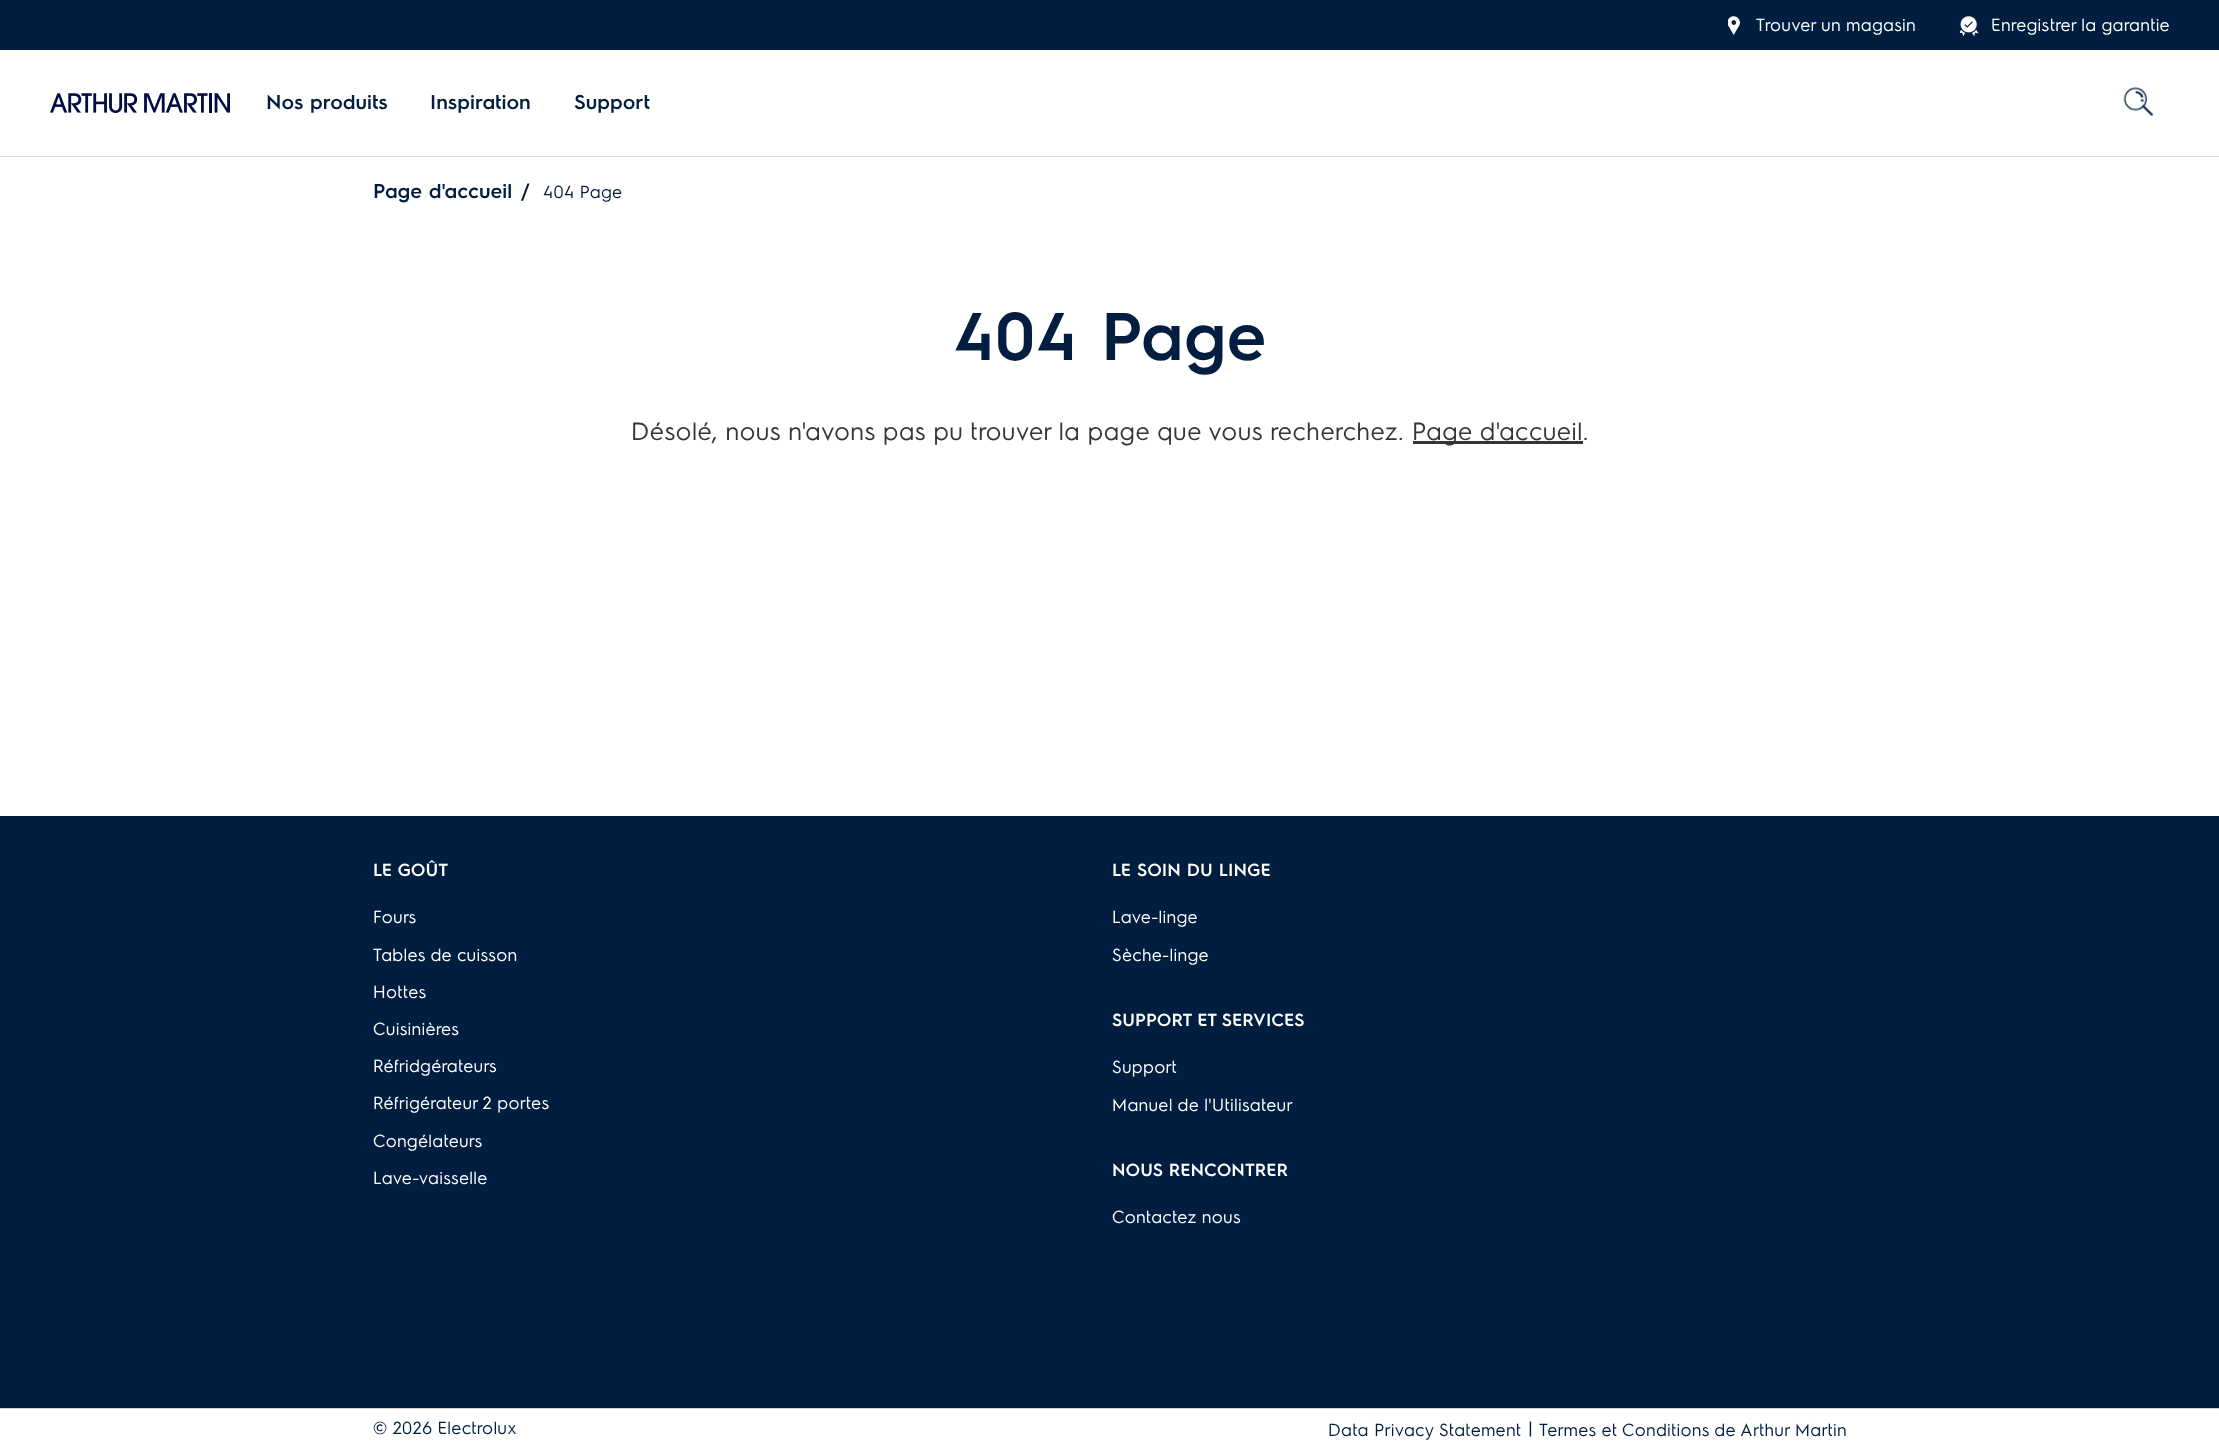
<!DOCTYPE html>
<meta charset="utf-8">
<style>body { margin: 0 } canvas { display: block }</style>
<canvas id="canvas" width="2219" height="1444"></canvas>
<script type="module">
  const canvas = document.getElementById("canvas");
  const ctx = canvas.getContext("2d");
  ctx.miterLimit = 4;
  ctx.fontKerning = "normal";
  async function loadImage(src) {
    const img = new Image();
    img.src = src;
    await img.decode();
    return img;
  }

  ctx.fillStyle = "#ffffff";
  ctx.fillRect(0, 0, 2219, 1444);
  ctx.fillStyle = "#dadada";
  ctx.fillRect(0, 156, 2219, 1);
  ctx.fillStyle = "#011e41";
  ctx.fillRect(0, 0, 2219, 50);
  ctx.drawImage(await loadImage("img1.png"), 1728, 16, 12, 19);
  ctx.font = "17.5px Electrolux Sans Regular";
  ctx.fillStyle = "#ffffff";
  ctx.fillText("Trouver un magasin", 1756, 31);
  ctx.drawImage(await loadImage("img2.png"), 1960, 16, 19, 20);
  ctx.fillText("Enregistrer la garantie", 1991, 31);
  ctx.drawImage(await loadImage("img3.png"), 50, 93, 180, 20);
  ctx.font = "600 20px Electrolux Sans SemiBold";
  ctx.fillStyle = "#011e41";
  ctx.fillText("Nos produits", 266, 109);
  ctx.fillText("Inspiration", 430, 109);
  ctx.fillText("Support", 574, 109);
  ctx.drawImage(await loadImage("img4.png"), 2123, 87, 31, 30);
  ctx.fillText("Page d'accueil", 373, 198);
  ctx.fillText("/", 521, 198);
  ctx.font = "17.5px Electrolux Sans Regular";
  ctx.fillText("404 Page", 543, 198);
  ctx.font = "600 67.5px Electrolux Sans SemiBold";
  ctx.fillText("404 Page", 953, 360);
  ctx.font = "25px Electrolux Sans Regular";
  ctx.fillStyle = "#353536";
  ctx.fillText("Désolé, nous n'avons pas pu trouver la page que vous recherchez.", 631, 440);
  ctx.fillRect(1413, 441, 170, 3);
  ctx.fillText("Page d'accueil.", 1412, 440);
  ctx.fillStyle = "#011e41";
  ctx.fillRect(0, 816, 2219, 592);
  ctx.font = "600 17.5px Electrolux Sans SemiBold";
  ctx.fillStyle = "#ffffff";
  ctx.fillText("LE GOÛT", 373, 876);
  ctx.font = "17.5px Electrolux Sans Regular";
  ctx.fillText("Fours", 373, 923);
  ctx.fillText("Tables de cuisson", 373, 961);
  ctx.fillText("Hottes", 373, 998);
  ctx.fillText("Cuisinières", 373, 1035);
  ctx.fillText("Réfridgérateurs", 373, 1072);
  ctx.fillText("Réfrigérateur 2 portes", 373, 1109);
  ctx.fillText("Congélateurs", 373, 1147);
  ctx.fillText("Lave-vaisselle", 373, 1184);
  ctx.font = "600 17.5px Electrolux Sans SemiBold";
  ctx.fillText("LE SOIN DU LINGE", 1112, 876);
  ctx.font = "17.5px Electrolux Sans Regular";
  ctx.fillText("Lave-linge", 1112, 923);
  ctx.fillText("Sèche-linge", 1112, 961);
  ctx.font = "600 17.5px Electrolux Sans SemiBold";
  ctx.fillText("SUPPORT ET SERVICES", 1112, 1026);
  ctx.font = "17.5px Electrolux Sans Regular";
  ctx.fillText("Support", 1112, 1073);
  ctx.fillText("Manuel de l'Utilisateur", 1112, 1111);
  ctx.font = "600 17.5px Electrolux Sans SemiBold";
  ctx.fillText("NOUS RENCONTRER", 1112, 1176);
  ctx.font = "17.5px Electrolux Sans Regular";
  ctx.fillText("Contactez nous", 1112, 1223);
  ctx.fillStyle = "#d1d3d3";
  ctx.fillRect(0, 1408, 2219, 1);
  ctx.fillStyle = "#011e41";
  ctx.fillText("© 2026 Electrolux", 373, 1434);
  ctx.fillText("Data Privacy Statement", 1328, 1436);
  ctx.font = "20px Electrolux Sans Regular";
  ctx.fillText("|", 1528, 1436);
  ctx.font = "17.5px Electrolux Sans Regular";
  ctx.fillText("Termes et Conditions de Arthur Martin", 1539, 1436);
</script>
